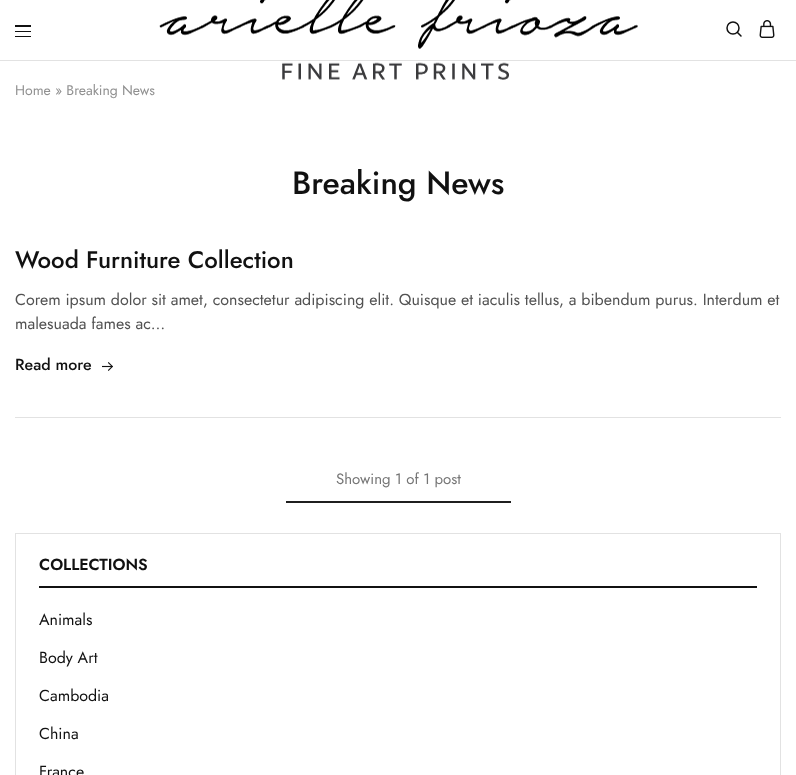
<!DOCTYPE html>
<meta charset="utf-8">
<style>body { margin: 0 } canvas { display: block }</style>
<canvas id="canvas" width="796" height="775"></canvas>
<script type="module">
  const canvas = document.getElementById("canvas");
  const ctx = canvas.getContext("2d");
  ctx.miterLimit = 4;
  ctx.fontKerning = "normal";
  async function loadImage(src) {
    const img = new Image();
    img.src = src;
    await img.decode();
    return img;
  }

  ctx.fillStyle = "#ffffff";
  ctx.fillRect(0, 0, 796, 775);
  ctx.fillStyle = "#e2e2e2";
  ctx.fillRect(0, 60, 796, 1);
  ctx.fillStyle = "#111111";
  ctx.fillRect(15, 25, 16, 2);
  ctx.fillRect(15, 31, 16, 1);
  ctx.fillRect(15, 36, 16, 1);
  ctx.drawImage(await loadImage("img1.png"), 159, 0, 479, 80);
  ctx.beginPath();
  ctx.arc(733, 28, 6, 0, Math.PI * 2);
  ctx.strokeStyle = "#111111";
  ctx.lineWidth = 1.5;
  ctx.stroke();
  ctx.beginPath();
  ctx.moveTo(741, 36);
  ctx.lineTo(737.5, 32.5);
  ctx.lineCap = "round";
  ctx.lineJoin = "round";
  ctx.stroke();
  ctx.drawImage(await loadImage("img2.png"), 759, 20, 16, 18);
  ctx.font = "14px Jost";
  ctx.fillStyle = "#909090";
  ctx.fillText("Home » Breaking News", 15, 95);
  ctx.font = "500 32px Jost";
  ctx.fillStyle = "#111111";
  ctx.fillText("Breaking News", 292, 194);
  ctx.fillStyle = "#e2e2e2";
  ctx.fillRect(15, 417, 766, 1);
  ctx.font = "500 24px Jost";
  ctx.fillStyle = "#111111";
  ctx.fillText("Wood Furniture Collection", 15, 268);
  ctx.font = "16px Jost";
  ctx.fillStyle = "#525252";
  ctx.fillText("Corem ipsum dolor sit amet, consectetur adipiscing elit. Quisque et iaculis tellus, a bibendum purus. Interdum et", 15, 305);
  ctx.fillText("malesuada fames ac…", 15, 329);
  ctx.font = "500 16px Jost";
  ctx.fillStyle = "#111111";
  ctx.fillText("Read more", 15, 370);
  ctx.drawImage(await loadImage("img3.png"), 102, 362, 11, 9);
  ctx.font = "15px Jost";
  ctx.fillStyle = "#767676";
  ctx.fillText("Showing 1 of 1 post", 336, 484);
  ctx.fillStyle = "#1f1f1f";
  ctx.fillRect(286, 501, 225, 2);
  ctx.strokeStyle = "#e2e2e2";
  ctx.lineWidth = 1;
  ctx.lineJoin = "miter";
  ctx.strokeRect(15.5, 533.5, 765, 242);
  ctx.fillStyle = "#111111";
  ctx.fillRect(39, 586, 718, 2);
  ctx.font = "600 16px Jost";
  ctx.fillText("COLLECTIONS", 39, 570);
  ctx.font = "16px Jost";
  ctx.fillText("Animals", 39, 625);
  ctx.fillText("Body Art", 39, 663);
  ctx.fillText("Cambodia", 39, 701);
  ctx.fillText("China", 39, 739);
  ctx.fillText("France", 39, 777);
</script>
